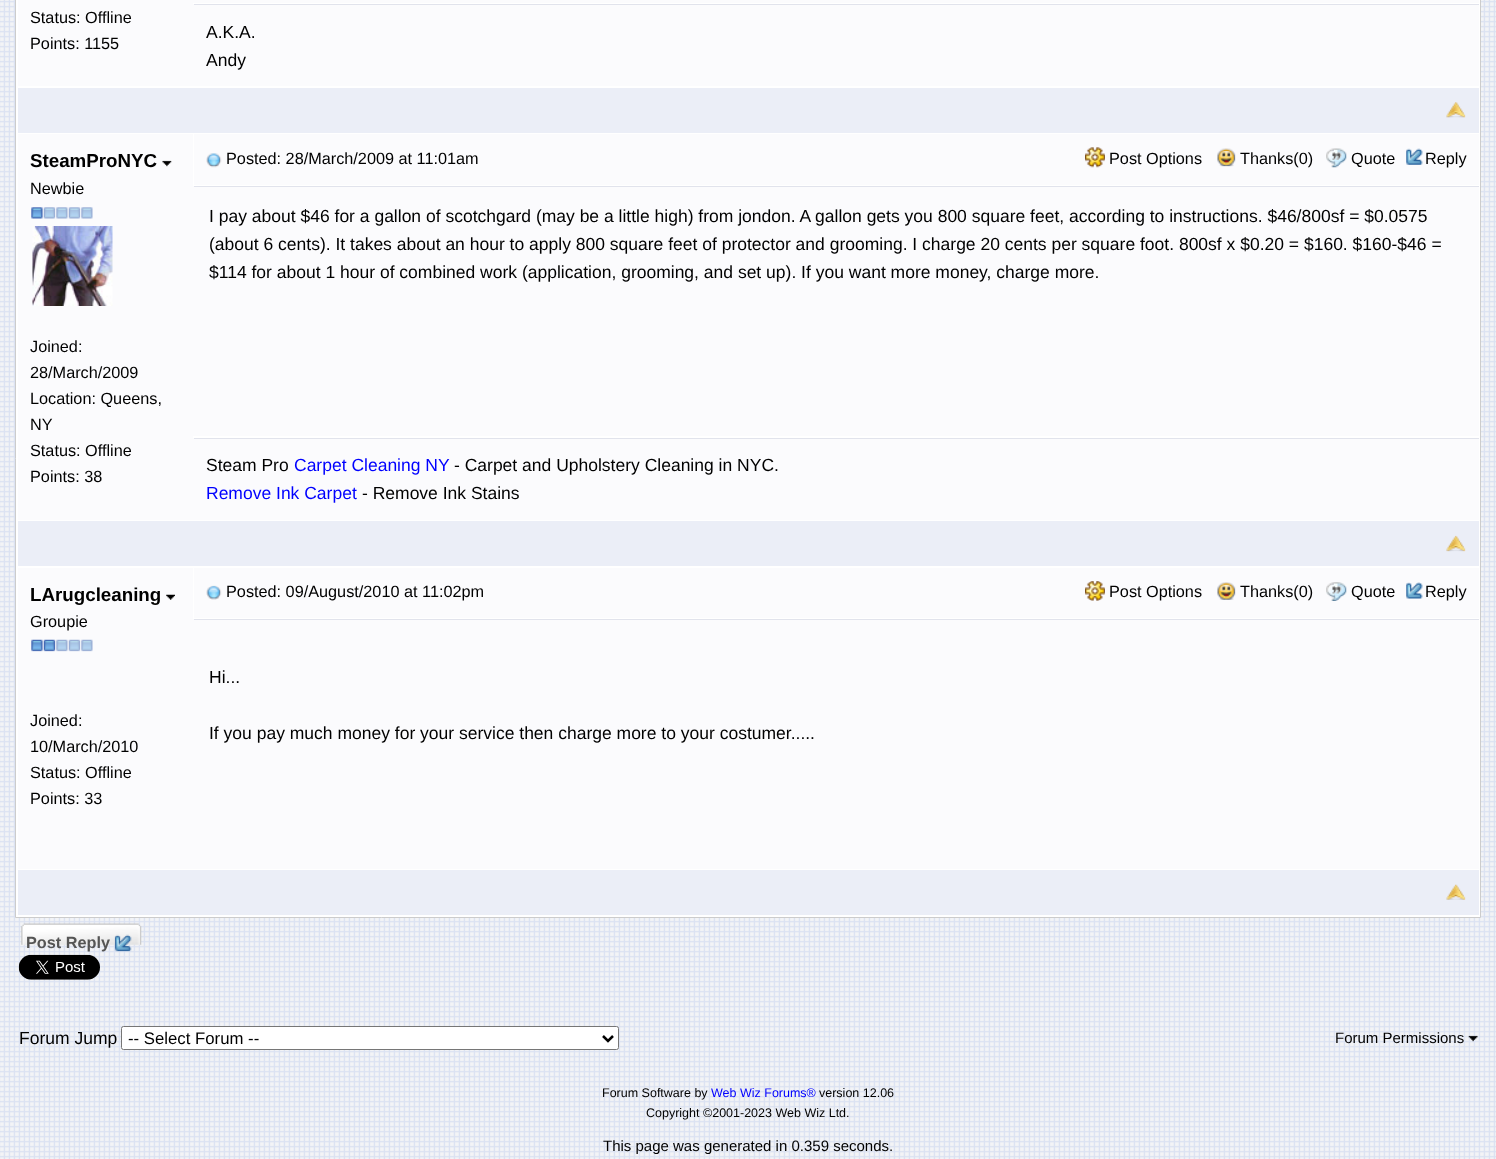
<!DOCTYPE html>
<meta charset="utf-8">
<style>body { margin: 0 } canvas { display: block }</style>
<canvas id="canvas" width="1496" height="1159"></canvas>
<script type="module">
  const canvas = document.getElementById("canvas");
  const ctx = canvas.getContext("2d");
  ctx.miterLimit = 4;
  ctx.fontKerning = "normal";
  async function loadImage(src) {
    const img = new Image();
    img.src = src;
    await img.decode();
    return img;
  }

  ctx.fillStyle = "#ffffff";
  ctx.fillRect(0, 0, 1496, 1159);
  ctx.drawImage(await loadImage("img1.png"), 0, 0, 1496, 1159);
  ctx.beginPath();
  ctx.rect(15.5, -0.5, 1465, 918);
  ctx.fill();
  ctx.strokeStyle = "#cccccc";
  ctx.stroke();
  ctx.fillStyle = "#fbfbfd";
  ctx.fillRect(18, 0, 1461, 3);
  ctx.fillRect(18, 3, 175, 1);
  ctx.fillRect(18, 4, 1461, 82);
  ctx.font = "16.25px Liberation Sans";
  ctx.fillStyle = "#000000";
  ctx.fillText("Status: Offline", 30, 23);
  ctx.fillText("Points: 1155", 30, 49);
  ctx.fillStyle = "#e1e3ec";
  ctx.fillRect(194, 4, 1285, 1);
  ctx.font = "17.5px Liberation Sans";
  ctx.fillStyle = "#000000";
  ctx.fillText("A.K.A.", 206, 38);
  ctx.fillText("Andy", 206, 66);
  ctx.fillStyle = "#ebeef7";
  ctx.fillRect(18, 88, 1461, 45);
  ctx.drawImage(await loadImage("img2.png"), 1446, 102, 20, 16);
  ctx.fillStyle = "#fbfbfd";
  ctx.fillRect(18, 134, 175, 304);
  ctx.font = "bold 18.75px Liberation Sans";
  ctx.fillStyle = "#000000";
  ctx.fillText("SteamProNYC", 30, 167);
  ctx.drawImage(await loadImage("img3.png"), 162, 160, 10, 7);
  ctx.font = "16.25px Liberation Sans";
  ctx.fillText("Newbie", 30, 194);
  ctx.drawImage(await loadImage("img4.png"), 31, 207, 62, 12);
  ctx.drawImage(await loadImage("img5.png"), 32, 226, 81, 80);
  ctx.fillText("Joined:", 30, 352);
  ctx.fillText("28/March/2009", 30, 378);
  ctx.fillText("Location: Queens,", 30, 404);
  ctx.fillText("NY", 30, 430);
  ctx.fillStyle = "#fbfbfd";
  ctx.fillRect(18, 438, 1461, 82);
  ctx.fillStyle = "#000000";
  ctx.fillText("Status: Offline", 30, 456);
  ctx.fillText("Points: 38", 30, 482);
  ctx.fillStyle = "#fbfbfd";
  ctx.fillRect(194, 134, 1285, 51);
  ctx.drawImage(await loadImage("img6.png"), 206, 153, 16, 15);
  ctx.fillStyle = "#000000";
  ctx.fillText("Posted: 28/March/2009 at 11:01am", 226, 164);
  ctx.drawImage(await loadImage("img7.png"), 1085, 147, 20, 21);
  ctx.fillText("Post Options", 1109, 164);
  ctx.drawImage(await loadImage("img8.png"), 1217, 148, 19, 19);
  ctx.fillText("Thanks(0)", 1240, 164);
  ctx.drawImage(await loadImage("img9.png"), 1326, 148, 21, 20);
  ctx.fillText("Quote", 1351, 164);
  ctx.drawImage(await loadImage("img10.png"), 1406, 148, 17, 17);
  ctx.fillText("Reply", 1425, 164);
  ctx.fillStyle = "#fbfbfd";
  ctx.fillRect(193, 186, 1286, 250);
  ctx.fillStyle = "#e1e3ec";
  ctx.fillRect(194, 186, 1285, 1);
  ctx.font = "17.5px Liberation Sans";
  ctx.fillStyle = "#000000";
  ctx.fillText("I pay about $46 for a gallon of scotchgard (may be a little high) from jondon. A gallon gets you 800 square feet, according to instructions. $46/800sf = $0.0575", 209, 222);
  ctx.fillText("(about 6 cents). It takes about an hour to apply 800 square feet of protector and grooming. I charge 20 cents per square foot. 800sf x $0.20 = $160. $160-$46 =", 209, 250);
  ctx.fillText("$114 for about 1 hour of combined work (application, grooming, and set up). If you want more money, charge more.", 209, 278);
  ctx.fillStyle = "#e1e3ec";
  ctx.fillRect(194, 438, 1285, 1);
  ctx.fillStyle = "#000000";
  ctx.fillText("Steam Pro", 206, 471);
  ctx.fillStyle = "#0000ff";
  ctx.fillText("Carpet Cleaning NY", 294, 471);
  ctx.fillStyle = "#000000";
  ctx.fillText("- Carpet and Upholstery Cleaning in NYC.", 454, 471);
  ctx.fillStyle = "#0000ff";
  ctx.fillText("Remove Ink Carpet", 206, 499);
  ctx.fillStyle = "#000000";
  ctx.fillText("- Remove Ink Stains", 362, 499);
  ctx.fillStyle = "#ebeef7";
  ctx.fillRect(18, 521, 1461, 45);
  ctx.drawImage(await loadImage("img11.png"), 1446, 535, 20, 17);
  ctx.fillStyle = "#fbfbfd";
  ctx.fillRect(18, 568, 175, 51);
  ctx.font = "bold 18.75px Liberation Sans";
  ctx.fillStyle = "#000000";
  ctx.fillText("LArugcleaning", 30, 601);
  ctx.drawImage(await loadImage("img12.png"), 166, 594, 9, 6);
  ctx.fillStyle = "#fbfbfd";
  ctx.fillRect(18, 619, 1461, 250);
  ctx.font = "16.25px Liberation Sans";
  ctx.fillStyle = "#000000";
  ctx.fillText("Groupie", 30, 627);
  ctx.drawImage(await loadImage("img13.png"), 31, 639, 62, 13);
  ctx.fillText("Joined:", 30, 726);
  ctx.fillText("10/March/2010", 30, 752);
  ctx.fillText("Status: Offline", 30, 778);
  ctx.fillText("Points: 33", 30, 804);
  ctx.fillStyle = "#fbfbfd";
  ctx.fillRect(194, 568, 1285, 50);
  ctx.drawImage(await loadImage("img14.png"), 206, 585, 16, 15);
  ctx.fillStyle = "#000000";
  ctx.fillText("Posted: 09/August/2010 at 11:02pm", 226, 597);
  ctx.drawImage(await loadImage("img15.png"), 1085, 581, 20, 20);
  ctx.fillText("Post Options", 1109, 597);
  ctx.drawImage(await loadImage("img16.png"), 1217, 582, 19, 18);
  ctx.fillText("Thanks(0)", 1240, 597);
  ctx.drawImage(await loadImage("img17.png"), 1326, 582, 21, 19);
  ctx.fillText("Quote", 1351, 597);
  ctx.drawImage(await loadImage("img18.png"), 1406, 582, 17, 17);
  ctx.fillText("Reply", 1425, 597);
  ctx.fillStyle = "#e1e3ec";
  ctx.fillRect(194, 619, 1285, 1);
  ctx.font = "17.5px Liberation Sans";
  ctx.fillStyle = "#000000";
  ctx.fillText("Hi...", 209, 683);
  ctx.fillText("If you pay much money for your service then charge more to your costumer.....", 209, 739);
  ctx.fillStyle = "#ebeef7";
  ctx.fillRect(18, 870, 1461, 45);
  ctx.drawImage(await loadImage("img19.png"), 1446, 884, 20, 16);
  ctx.drawImage(await loadImage("img20.png"), 21, 923, 121, 22);
  ctx.font = "bold 16.25px Liberation Sans";
  ctx.fillStyle = "#555555";
  ctx.fillText("Post Reply", 26, 948);
  ctx.drawImage(await loadImage("img21.png"), 114, 934, 18, 18);
  ctx.drawImage(await loadImage("img22.png"), 18, 954, 82, 26);
  ctx.font = "17.5px Liberation Sans";
  ctx.fillStyle = "#000000";
  ctx.fillText("Forum Jump", 19, 1044);
  ctx.fillStyle = "#ffffff";
  ctx.beginPath();
  ctx.roundRect(121.5, 1026.5, 497, 23, 2);
  ctx.fill();
  ctx.strokeStyle = "#767676";
  ctx.stroke();
  ctx.beginPath();
  ctx.moveTo(603, 1036);
  ctx.lineTo(608, 1041);
  ctx.lineTo(613, 1036);
  ctx.strokeStyle = "#000000";
  ctx.lineWidth = 2.5;
  ctx.stroke();
  ctx.font = "16.75px Liberation Sans";
  ctx.fillStyle = "#000000";
  ctx.fillText("-- Select Forum --", 128, 1044);
  ctx.font = "15px Liberation Sans";
  ctx.fillText("Forum Permissions", 1335, 1043);
  ctx.drawImage(await loadImage("img23.png"), 1468, 1035, 10, 7);
  ctx.font = "12.5px Liberation Sans";
  ctx.fillText("Forum Software by", 602, 1097);
  ctx.fillStyle = "#0000ff";
  ctx.fillText("Web Wiz Forums®", 711, 1097);
  ctx.fillStyle = "#000000";
  ctx.fillText("version 12.06", 819, 1097);
  ctx.fillText("Copyright ©2001-2023 Web Wiz Ltd.", 646, 1117);
  ctx.font = "15px Liberation Sans";
  ctx.fillText("This page was generated in 0.359 seconds.", 603, 1151);
</script>
